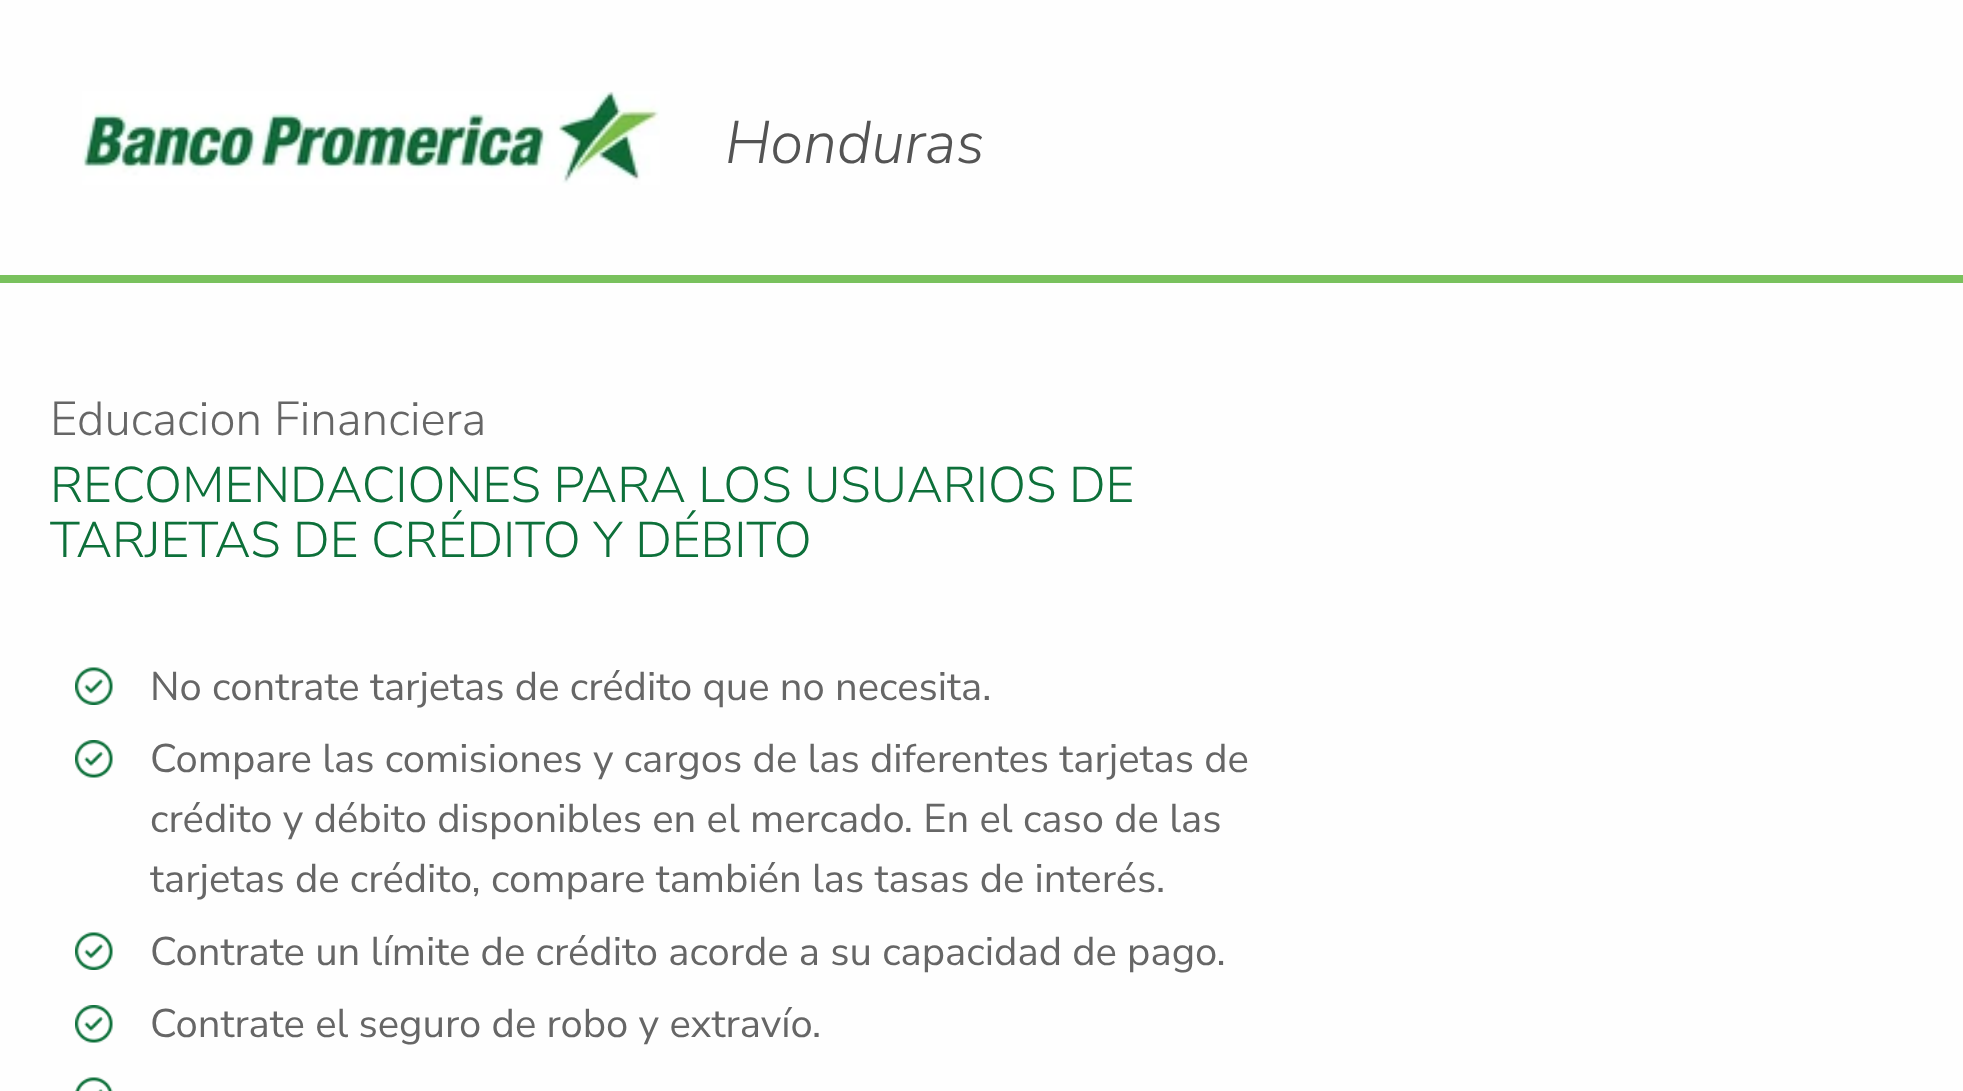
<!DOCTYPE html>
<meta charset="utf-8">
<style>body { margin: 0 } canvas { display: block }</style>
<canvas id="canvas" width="1963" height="1091"></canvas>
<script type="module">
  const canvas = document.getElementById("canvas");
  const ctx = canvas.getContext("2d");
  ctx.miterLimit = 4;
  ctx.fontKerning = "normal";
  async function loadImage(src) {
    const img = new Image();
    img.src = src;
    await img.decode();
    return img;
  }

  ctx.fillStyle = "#fefefe";
  ctx.fillRect(0, 0, 1963, 1091);
  ctx.fillStyle = "#79c15d";
  ctx.fillRect(0, 275, 1963, 8);
  ctx.drawImage(await loadImage("img1.png"), 82, 91, 578, 94);
  ctx.font = "italic 300 60px Nunito Sans";
  ctx.fillStyle = "#545454";
  ctx.fillText("Honduras", 725, 163);
  ctx.font = "300 47.5px Nunito Sans";
  ctx.fillStyle = "#666666";
  ctx.fillText("Educacion Financiera", 50, 435);
  ctx.font = "300 50px Nunito Sans";
  ctx.fillStyle = "#0d703a";
  ctx.fillText("RECOMENDACIONES PARA LOS USUARIOS DE", 50, 502);
  ctx.fillText("TARJETAS DE CRÉDITO Y DÉBITO", 50, 557);
  ctx.drawImage(await loadImage("img2.png"), 75, 667, 38, 38);
  ctx.font = "40px Nunito Sans";
  ctx.fillStyle = "#666666";
  ctx.fillText("No contrate tarjetas de crédito que no necesita.", 150, 700);
  ctx.drawImage(await loadImage("img3.png"), 75, 740, 38, 38);
  ctx.fillText("Compare las comisiones y cargos de las diferentes tarjetas de", 150, 772);
  ctx.fillText("crédito y débito disponibles en el mercado. En el caso de las", 150, 832);
  ctx.fillText("tarjetas de crédito, compare también las tasas de interés.", 150, 892);
  ctx.drawImage(await loadImage("img2.png"), 75, 932, 38, 38);
  ctx.fillText("Contrate un límite de crédito acorde a su capacidad de pago.", 150, 965);
  ctx.drawImage(await loadImage("img3.png"), 75, 1005, 38, 38);
  ctx.fillText("Contrate el seguro de robo y extravío.", 150, 1037);
  ctx.drawImage(await loadImage("img4.png"), 75, 1077, 38, 14);
</script>
